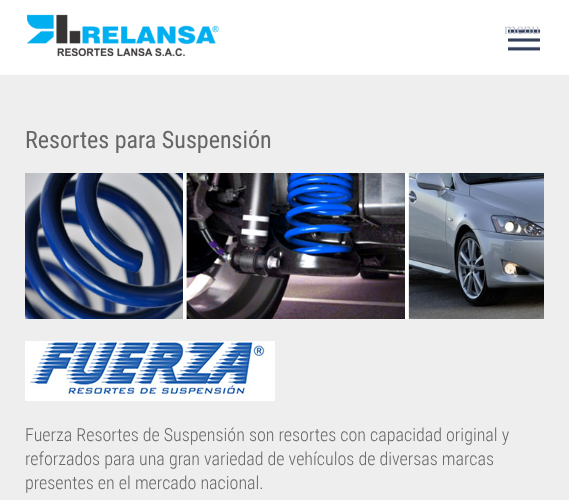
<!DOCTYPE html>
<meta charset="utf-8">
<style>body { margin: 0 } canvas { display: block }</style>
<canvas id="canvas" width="569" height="500"></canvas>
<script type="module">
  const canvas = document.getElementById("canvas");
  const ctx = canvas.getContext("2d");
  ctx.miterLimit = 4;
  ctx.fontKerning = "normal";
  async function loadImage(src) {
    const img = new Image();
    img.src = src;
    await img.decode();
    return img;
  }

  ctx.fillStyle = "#eeeeee";
  ctx.fillRect(0, 0, 569, 500);
  ctx.fillStyle = "#ffffff";
  ctx.fillRect(0, 0, 569, 75);
  ctx.drawImage(await loadImage("img1.png"), 27, 14, 192, 43);
  ctx.drawImage(await loadImage("img2.png"), 508, 29, 32, 22);
  ctx.font = "16px Liberation Serif";
  ctx.fillStyle = "#c3c6ce";
  ctx.fillText("menu", 504, 34);
  ctx.font = "24px Roboto Condensed";
  ctx.fillStyle = "#666666";
  ctx.fillText("Resortes para Suspensión", 25, 148);
  ctx.drawImage(await loadImage("img3.png"), 25, 173, 519, 146);
  ctx.drawImage(await loadImage("img4.png"), 25, 341, 250, 60);
  ctx.font = "300 18px Roboto Condensed";
  ctx.fillText("Fuerza Resortes de Suspensión son resortes con capacidad original y", 25, 441);
  ctx.fillText("reforzados para una gran variedad de vehículos de diversas marcas", 25, 465);
  ctx.fillText("presentes en el mercado nacional.", 25, 489);
</script>
